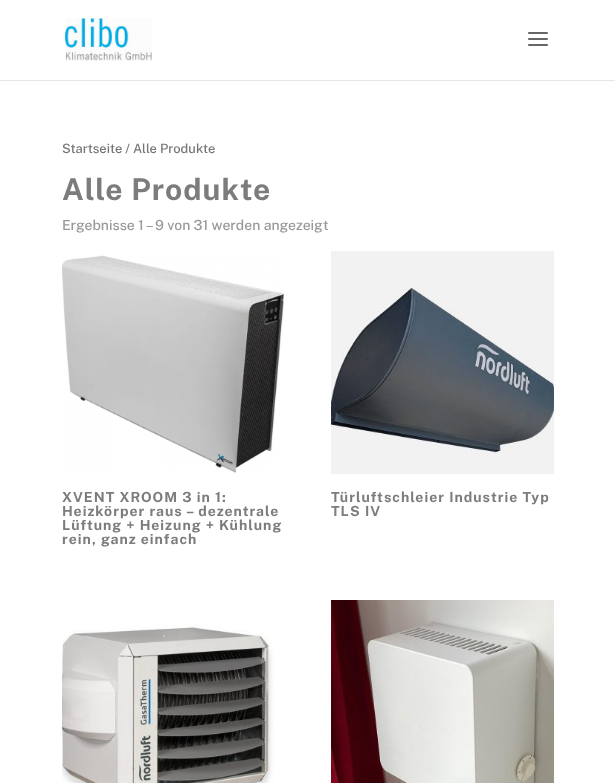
<!DOCTYPE html>
<meta charset="utf-8">
<style>body { margin: 0 } canvas { display: block }</style>
<canvas id="canvas" width="615" height="783"></canvas>
<script type="module">
  const canvas = document.getElementById("canvas");
  const ctx = canvas.getContext("2d");
  ctx.miterLimit = 4;
  ctx.fontKerning = "normal";
  async function loadImage(src) {
    const img = new Image();
    img.src = src;
    await img.decode();
    return img;
  }

  ctx.fillStyle = "#ffffff";
  ctx.fillRect(0, 0, 615, 783);
  ctx.fillStyle = "#e6e6e6";
  ctx.fillRect(0, 80, 615, 1);
  ctx.drawImage(await loadImage("img1.png"), 65, 18, 87, 43);
  ctx.drawImage(await loadImage("img2.png"), 528, 32, 20, 14);
  ctx.font = "500 12.9px Public Sans";
  ctx.fillStyle = "#767676";
  ctx.fillText("Startseite / Alle Produkte", 62, 153);
  ctx.letterSpacing = "1px";
  ctx.font = "bold 30px Public Sans";
  ctx.fillStyle = "#7c7c7c";
  ctx.fillText("Alle Produkte", 62, 200);
  ctx.letterSpacing = "0px";
  ctx.font = "500 14px Public Sans";
  ctx.fillStyle = "#999999";
  ctx.fillText("Ergebnisse 1 – 9 von 31 werden angezeigt", 62, 230);
  ctx.drawImage(await loadImage("img3.png"), 62, 255, 222, 218);
  ctx.letterSpacing = "1px";
  ctx.font = "bold 14px Public Sans";
  ctx.fillStyle = "#7c7c7c";
  ctx.fillText("XVENT XROOM 3 in 1:", 62, 502);
  ctx.fillText("Heizkörper raus – dezentrale", 62, 516);
  ctx.fillText("Lüftung + Heizung + Kühlung", 62, 530);
  ctx.fillText("rein, ganz einfach", 62, 544);
  ctx.drawImage(await loadImage("img4.png"), 331, 251, 223, 223);
  ctx.fillText("Türluftschleier Industrie Typ", 331, 502);
  ctx.fillText("TLS IV", 331, 516);
  ctx.drawImage(await loadImage("img5.png"), 62, 624, 213, 159);
  ctx.drawImage(await loadImage("img6.png"), 331, 600, 223, 183);
</script>
